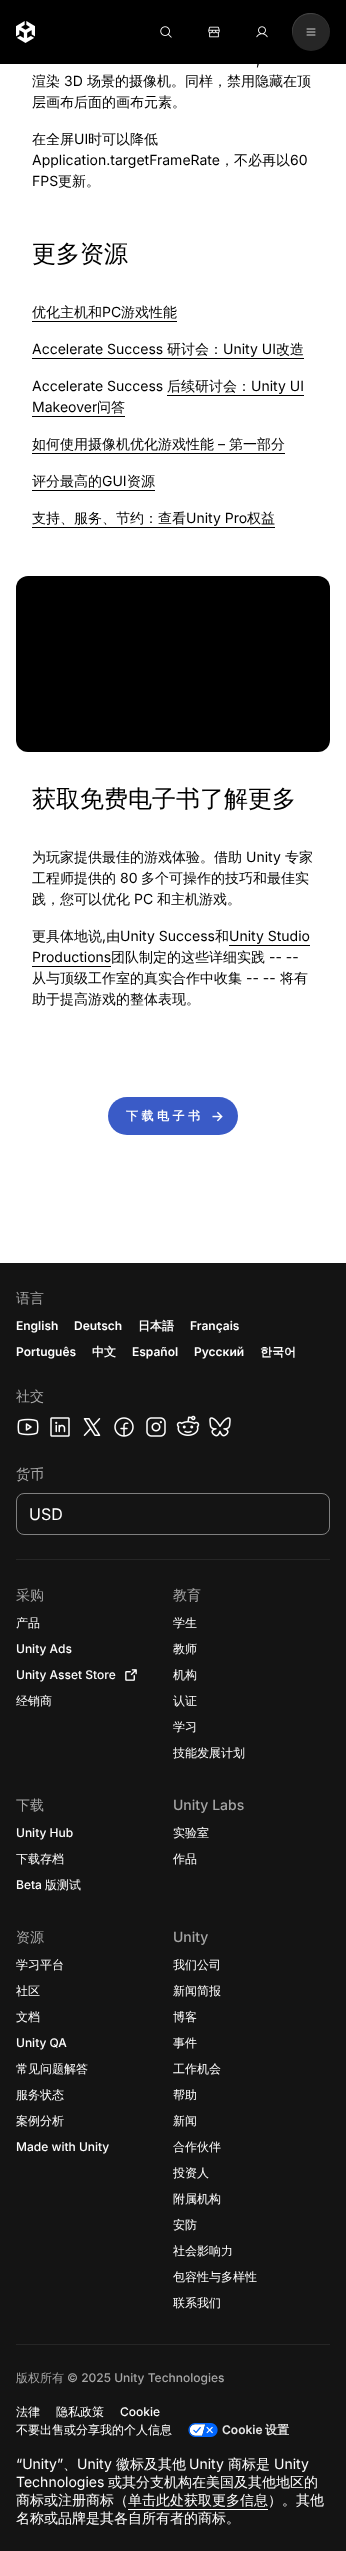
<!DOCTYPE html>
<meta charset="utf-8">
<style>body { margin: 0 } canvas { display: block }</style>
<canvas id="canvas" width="346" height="2551"></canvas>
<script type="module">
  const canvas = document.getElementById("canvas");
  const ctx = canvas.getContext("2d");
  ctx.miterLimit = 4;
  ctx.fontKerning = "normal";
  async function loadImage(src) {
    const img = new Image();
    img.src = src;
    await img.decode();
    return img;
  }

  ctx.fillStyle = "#ffffff";
  ctx.fillRect(0, 0, 346, 2551);
  ctx.fillStyle = "#000000";
  ctx.fillRect(0, 0, 346, 64);
  ctx.drawImage(await loadImage("img1.png"), 16, 21, 19, 22);
  ctx.drawImage(await loadImage("img2.png"), 160, 26, 12, 12);
  ctx.drawImage(await loadImage("img3.png"), 208, 26, 12, 12);
  ctx.drawImage(await loadImage("img4.png"), 256, 26, 12, 12);
  ctx.fillStyle = "#262626";
  ctx.beginPath();
  ctx.arc(311, 32, 19, 0, Math.PI * 2);
  ctx.fill();
  ctx.fillStyle = "#424242";
  ctx.beginPath();
  ctx.moveTo(311, 14);
  ctx.bezierCurveTo(325, 14, 331, 26, 329, 36);
  ctx.bezierCurveTo(334, 16, 307, 4, 295, 21);
  ctx.bezierCurveTo(292, 26, 291, 31, 293, 36);
  ctx.bezierCurveTo(291, 26, 297, 14, 311, 14);
  ctx.closePath();
  ctx.fill();
  ctx.drawImage(await loadImage("img5.png"), 306, 28, 10, 8);
  ctx.font = "14px Inter";
  ctx.fillStyle = "#000000";
  ctx.fillText(",", 256, 65);
  ctx.font = "500 14px WenQuanYi Zen Hei";
  ctx.fillText("渲染", 32, 86);
  ctx.font = "14px Inter";
  ctx.fillText("3D", 64, 86);
  ctx.font = "500 14px WenQuanYi Zen Hei";
  ctx.fillText("场景的摄像机。同样，禁用隐藏在顶", 87, 86);
  ctx.fillText("层画布后面的画布元素。", 32, 107);
  ctx.fillText("在全屏", 32, 144);
  ctx.font = "14px Inter";
  ctx.fillText("UI", 74, 144);
  ctx.font = "500 14px WenQuanYi Zen Hei";
  ctx.fillText("时可以降低", 88, 144);
  ctx.font = "14px Inter";
  ctx.fillText("Application.targetFrameRate", 32, 165);
  ctx.font = "500 14px WenQuanYi Zen Hei";
  ctx.fillText("，不必再以", 220, 165);
  ctx.font = "14px Inter";
  ctx.fillText("60", 290, 165);
  ctx.fillText("FPS", 32, 186);
  ctx.font = "500 14px WenQuanYi Zen Hei";
  ctx.fillText("更新。", 58, 186);
  ctx.font = "500 24px WenQuanYi Zen Hei";
  ctx.fillText("更多资源", 32, 262);
  ctx.font = "500 14px WenQuanYi Zen Hei";
  ctx.fillText("优化主机和", 32, 317);
  ctx.fillRect(32, 321, 145, 1);
  ctx.font = "14px Inter";
  ctx.fillText("PC", 102, 317);
  ctx.font = "500 14px WenQuanYi Zen Hei";
  ctx.fillText("游戏性能", 121, 317);
  ctx.font = "14px Inter";
  ctx.fillText("Accelerate Success", 32, 354);
  ctx.font = "500 14px WenQuanYi Zen Hei";
  ctx.fillText("研讨会：", 167, 354);
  ctx.font = "14px Inter";
  ctx.fillText("Unity UI", 223, 354);
  ctx.fillRect(32, 358, 272, 1);
  ctx.font = "500 14px WenQuanYi Zen Hei";
  ctx.fillText("改造", 276, 354);
  ctx.font = "14px Inter";
  ctx.fillText("Accelerate Success", 32, 391);
  ctx.font = "500 14px WenQuanYi Zen Hei";
  ctx.fillText("后续研讨会：", 167, 391);
  ctx.font = "14px Inter";
  ctx.fillText("Unity UI", 251, 391);
  ctx.fillRect(167, 395, 137, 1);
  ctx.fillText("Makeover", 32, 412);
  ctx.fillRect(32, 416, 93, 1);
  ctx.font = "500 14px WenQuanYi Zen Hei";
  ctx.fillText("问答", 97, 412);
  ctx.fillText("如何使用摄像机优化游戏性能", 32, 449);
  ctx.font = "14px Inter";
  ctx.fillText("–", 218, 449);
  ctx.fillRect(32, 453, 253, 1);
  ctx.font = "500 14px WenQuanYi Zen Hei";
  ctx.fillText("第一部分", 229, 449);
  ctx.fillText("评分最高的", 32, 486);
  ctx.fillRect(32, 490, 123, 1);
  ctx.font = "14px Inter";
  ctx.fillText("GUI", 102, 486);
  ctx.font = "500 14px WenQuanYi Zen Hei";
  ctx.fillText("资源", 127, 486);
  ctx.fillText("支持、服务、节约：查看", 32, 523);
  ctx.font = "14px Inter";
  ctx.fillText("Unity Pro", 186, 523);
  ctx.fillRect(32, 527, 243, 1);
  ctx.font = "500 14px WenQuanYi Zen Hei";
  ctx.fillText("权益", 247, 523);
  ctx.beginPath();
  ctx.roundRect(16, 576, 314, 176, 12);
  ctx.fill();
  ctx.font = "500 24px WenQuanYi Zen Hei";
  ctx.fillText("获取免费电子书了解更多", 32, 807);
  ctx.font = "500 14px WenQuanYi Zen Hei";
  ctx.fillText("为玩家提供最佳的游戏体验。借助", 32, 862);
  ctx.font = "14px Inter";
  ctx.fillText("Unity", 246, 862);
  ctx.font = "500 14px WenQuanYi Zen Hei";
  ctx.fillText("专家", 285, 862);
  ctx.fillText("工程师提供的", 32, 883);
  ctx.font = "14px Inter";
  ctx.fillText("80", 120, 883);
  ctx.font = "500 14px WenQuanYi Zen Hei";
  ctx.fillText("多个可操作的技巧和最佳实", 141, 883);
  ctx.fillText("践，您可以优化", 32, 904);
  ctx.font = "14px Inter";
  ctx.fillText("PC", 134, 904);
  ctx.font = "500 14px WenQuanYi Zen Hei";
  ctx.fillText("和主机游戏。", 157, 904);
  ctx.fillText("更具体地说 由", 32, 941);
  ctx.font = "14px Inter";
  ctx.fillText("Unity Success", 120, 941);
  ctx.font = "500 14px WenQuanYi Zen Hei";
  ctx.fillText("和", 215, 941);
  ctx.font = "14px Inter";
  ctx.fillText("Unity Studio", 229, 941);
  ctx.fillRect(229, 945, 81, 1);
  ctx.fillText(",", 102, 941);
  ctx.fillText("Productions", 32, 962);
  ctx.fillRect(32, 966, 79, 1);
  ctx.font = "500 14px WenQuanYi Zen Hei";
  ctx.fillText("团队制定的这些详细实践", 111, 962);
  ctx.font = "14px Inter";
  ctx.fillText("-- --", 269, 962);
  ctx.font = "500 14px WenQuanYi Zen Hei";
  ctx.fillText("从与顶级工作室的真实合作中收集", 32, 983);
  ctx.font = "14px Inter";
  ctx.fillText("-- --", 246, 983);
  ctx.font = "500 14px WenQuanYi Zen Hei";
  ctx.fillText("将有", 280, 983);
  ctx.fillText("助于提高游戏的整体表现。", 32, 1004);
  ctx.fillStyle = "#3a5bc7";
  ctx.beginPath();
  ctx.roundRect(108, 1097, 130, 38, 19);
  ctx.fill();
  ctx.letterSpacing = "3.5px";
  ctx.font = "bold 12px WenQuanYi Zen Hei";
  ctx.fillStyle = "#ffffff";
  ctx.fillText("下载电子书", 126, 1120);
  ctx.drawImage(await loadImage("img6.png"), 212, 1111, 11, 11);
  ctx.fillStyle = "#141414";
  ctx.fillRect(0, 1263, 346, 1288);
  ctx.fillStyle = "#262626";
  ctx.fillRect(16, 1559, 314, 1);
  ctx.letterSpacing = "0px";
  ctx.font = "500 14px WenQuanYi Zen Hei";
  ctx.fillStyle = "#a6a6a6";
  ctx.fillText("语言", 16, 1303);
  ctx.font = "600 12px Inter";
  ctx.fillStyle = "#ffffff";
  ctx.fillText("English", 16, 1330);
  ctx.fillText("Deutsch", 74, 1330);
  ctx.font = "bold 12px WenQuanYi Zen Hei";
  ctx.fillText("日本語", 138, 1330);
  ctx.font = "600 12px Inter";
  ctx.fillText("Français", 190, 1330);
  ctx.fillText("Português", 16, 1356);
  ctx.font = "bold 12px WenQuanYi Zen Hei";
  ctx.fillText("中文", 92, 1356);
  ctx.font = "600 12px Inter";
  ctx.fillText("Español", 132, 1356);
  ctx.fillText("Русский", 194, 1356);
  ctx.font = "bold 12px WenQuanYi Zen Hei";
  ctx.fillText("한국어", 260, 1356);
  ctx.font = "500 14px WenQuanYi Zen Hei";
  ctx.fillStyle = "#a6a6a6";
  ctx.fillText("社交", 16, 1401);
  ctx.drawImage(await loadImage("img7.png"), 17, 1418, 22, 18);
  ctx.drawImage(await loadImage("img8.png"), 50, 1417, 20, 20);
  ctx.drawImage(await loadImage("img9.png"), 83, 1418, 18, 18);
  ctx.drawImage(await loadImage("img10.png"), 114, 1417, 20, 20);
  ctx.drawImage(await loadImage("img11.png"), 146, 1417, 20, 20);
  ctx.drawImage(await loadImage("img12.png"), 176, 1415, 24, 21);
  ctx.drawImage(await loadImage("img13.png"), 209, 1417, 22, 20);
  ctx.fillText("货币", 16, 1479);
  ctx.beginPath();
  ctx.roundRect(16.5, 1493.5, 313, 41, 7.5);
  ctx.strokeStyle = "#808080";
  ctx.stroke();
  ctx.font = "16px Inter";
  ctx.fillStyle = "#ffffff";
  ctx.fillText("USD", 29, 1520);
  ctx.fillStyle = "#262626";
  ctx.fillRect(16, 2344, 314, 1);
  ctx.font = "500 14px WenQuanYi Zen Hei";
  ctx.fillStyle = "#a6a6a6";
  ctx.fillText("采购", 16, 1600);
  ctx.font = "500 12px WenQuanYi Zen Hei";
  ctx.fillStyle = "#ffffff";
  ctx.fillText("产品", 16, 1627);
  ctx.font = "500 12px Inter";
  ctx.fillText("Unity Ads", 16, 1653);
  ctx.fillText("Unity Asset Store", 16, 1679);
  ctx.drawImage(await loadImage("img14.png"), 125, 1669, 12, 12);
  ctx.font = "500 12px WenQuanYi Zen Hei";
  ctx.fillText("经销商", 16, 1705);
  ctx.font = "500 14px WenQuanYi Zen Hei";
  ctx.fillStyle = "#a6a6a6";
  ctx.fillText("教育", 173, 1600);
  ctx.font = "500 12px WenQuanYi Zen Hei";
  ctx.fillStyle = "#ffffff";
  ctx.fillText("学生", 173, 1627);
  ctx.fillText("教师", 173, 1653);
  ctx.fillText("机构", 173, 1679);
  ctx.fillText("认证", 173, 1705);
  ctx.fillText("学习", 173, 1731);
  ctx.fillText("技能发展计划", 173, 1757);
  ctx.font = "500 14px WenQuanYi Zen Hei";
  ctx.fillStyle = "#a6a6a6";
  ctx.fillText("下载", 16, 1810);
  ctx.font = "500 12px Inter";
  ctx.fillStyle = "#ffffff";
  ctx.fillText("Unity Hub", 16, 1837);
  ctx.font = "500 12px WenQuanYi Zen Hei";
  ctx.fillText("下载存档", 16, 1863);
  ctx.font = "500 12px Inter";
  ctx.fillText("Beta", 16, 1889);
  ctx.font = "500 12px WenQuanYi Zen Hei";
  ctx.fillText("版测试", 45, 1889);
  ctx.font = "500 14px Inter";
  ctx.fillStyle = "#a6a6a6";
  ctx.fillText("Unity Labs", 173, 1810);
  ctx.font = "500 12px WenQuanYi Zen Hei";
  ctx.fillStyle = "#ffffff";
  ctx.fillText("实验室", 173, 1837);
  ctx.fillText("作品", 173, 1863);
  ctx.font = "500 14px WenQuanYi Zen Hei";
  ctx.fillStyle = "#a6a6a6";
  ctx.fillText("资源", 16, 1942);
  ctx.font = "500 12px WenQuanYi Zen Hei";
  ctx.fillStyle = "#ffffff";
  ctx.fillText("学习平台", 16, 1969);
  ctx.fillText("社区", 16, 1995);
  ctx.fillText("文档", 16, 2021);
  ctx.font = "500 12px Inter";
  ctx.fillText("Unity QA", 16, 2047);
  ctx.font = "500 12px WenQuanYi Zen Hei";
  ctx.fillText("常见问题解答", 16, 2073);
  ctx.fillText("服务状态", 16, 2099);
  ctx.fillText("案例分析", 16, 2125);
  ctx.font = "500 12px Inter";
  ctx.fillText("Made with Unity", 16, 2151);
  ctx.font = "500 14px Inter";
  ctx.fillStyle = "#a6a6a6";
  ctx.fillText("Unity", 173, 1942);
  ctx.font = "500 12px WenQuanYi Zen Hei";
  ctx.fillStyle = "#ffffff";
  ctx.fillText("我们公司", 173, 1969);
  ctx.fillText("新闻简报", 173, 1995);
  ctx.fillText("博客", 173, 2021);
  ctx.fillText("事件", 173, 2047);
  ctx.fillText("工作机会", 173, 2073);
  ctx.fillText("帮助", 173, 2099);
  ctx.fillText("新闻", 173, 2125);
  ctx.fillText("合作伙伴", 173, 2151);
  ctx.fillText("投资人", 173, 2177);
  ctx.fillText("附属机构", 173, 2203);
  ctx.fillText("安防", 173, 2229);
  ctx.fillText("社会影响力", 173, 2255);
  ctx.fillText("包容性与多样性", 173, 2281);
  ctx.fillText("联系我们", 173, 2307);
  ctx.fillStyle = "#a6a6a6";
  ctx.fillText("版权所有", 16, 2382);
  ctx.font = "500 12px Inter";
  ctx.fillText("© 2025 Unity Technologies", 67, 2382);
  ctx.font = "500 12px WenQuanYi Zen Hei";
  ctx.fillStyle = "#ffffff";
  ctx.fillText("法律", 16, 2416);
  ctx.fillText("隐私政策", 56, 2416);
  ctx.font = "500 12px Inter";
  ctx.fillText("Cookie", 120, 2416);
  ctx.font = "500 12px WenQuanYi Zen Hei";
  ctx.fillText("不要出售或分享我的个人信息", 16, 2434);
  ctx.drawImage(await loadImage("img15.png"), 188, 2423, 30, 14);
  ctx.font = "600 12px Inter";
  ctx.fillStyle = "#e6e6e6";
  ctx.fillText("Cookie", 222, 2434);
  ctx.font = "bold 12px WenQuanYi Zen Hei";
  ctx.fillText("设置", 265, 2434);
  ctx.font = "14px Inter";
  ctx.fillStyle = "#ffffff";
  ctx.fillText("“Unity”", 16, 2469);
  ctx.font = "500 14px WenQuanYi Zen Hei";
  ctx.fillText("、", 63, 2469);
  ctx.font = "14px Inter";
  ctx.fillText("Unity", 77, 2469);
  ctx.font = "500 14px WenQuanYi Zen Hei";
  ctx.fillText("徽标及其他", 116, 2469);
  ctx.font = "14px Inter";
  ctx.fillText("Unity", 189, 2469);
  ctx.font = "500 14px WenQuanYi Zen Hei";
  ctx.fillText("商标是", 228, 2469);
  ctx.font = "14px Inter";
  ctx.fillText("Unity", 274, 2469);
  ctx.fillText("Technologies", 16, 2487);
  ctx.font = "500 14px WenQuanYi Zen Hei";
  ctx.fillText("或其分支机构在美国及其他地区的", 108, 2487);
  ctx.fillText("商标或注册商标（单击此处获取更多信息）。其他", 16, 2505);
  ctx.fillRect(128, 2509, 140, 1);
  ctx.fillText("名称或品牌是其各自所有者的商标。", 16, 2523);
</script>
